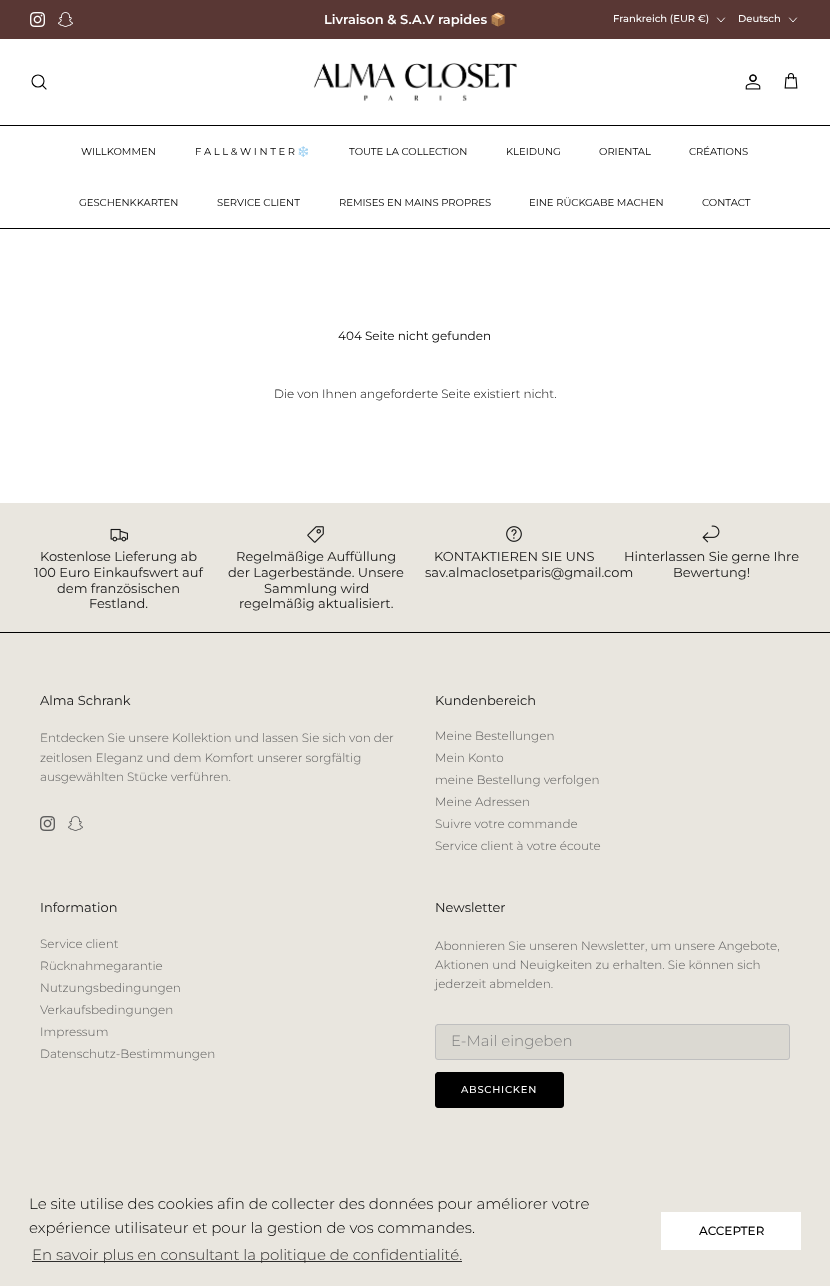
<!DOCTYPE html>
<meta charset="utf-8">
<style>body { margin: 0 } canvas { display: block }</style>
<canvas id="canvas" width="830" height="1286"></canvas>
<script type="module">
  const canvas = document.getElementById("canvas");
  const ctx = canvas.getContext("2d");
  ctx.miterLimit = 4;
  ctx.fontKerning = "normal";
  async function loadImage(src) {
    const img = new Image();
    img.src = src;
    await img.decode();
    return img;
  }

  ctx.fillStyle = "#ffffff";
  ctx.fillRect(0, 0, 830, 1286);
  ctx.fillStyle = "#593734";
  ctx.fillRect(0, 0, 830, 39);
  ctx.drawImage(await loadImage("img1.png"), 30, 12, 15, 15);
  ctx.drawImage(await loadImage("img2.png"), 58, 12, 15, 15);
  ctx.font = "600 13px Montserrat";
  ctx.fillStyle = "#ffffff";
  ctx.fillText("Livraison & S.A.V rapides", 324, 24);
  ctx.font = "bold 13px Noto Color Emoji";
  ctx.fillText("📦", 490, 24);
  ctx.font = "500 10px Montserrat";
  ctx.fillText("Frankreich (EUR €)", 613, 22);
  ctx.beginPath();
  ctx.moveTo(717.5, 18);
  ctx.lineTo(721, 22);
  ctx.lineTo(724.5, 18);
  ctx.strokeStyle = "#ffffff";
  ctx.lineWidth = 0.9;
  ctx.lineCap = "round";
  ctx.lineJoin = "round";
  ctx.stroke();
  ctx.fillText("Deutsch", 738, 22);
  ctx.beginPath();
  ctx.moveTo(789.5, 18);
  ctx.lineTo(793, 22);
  ctx.lineTo(796.5, 18);
  ctx.stroke();
  ctx.fillStyle = "#000000";
  ctx.fillRect(0, 125, 830, 1);
  ctx.beginPath();
  ctx.arc(38, 81, 6, 0, Math.PI * 2);
  ctx.strokeStyle = "#000000";
  ctx.lineWidth = 1.1;
  ctx.stroke();
  ctx.beginPath();
  ctx.moveTo(42.5, 85.5);
  ctx.lineTo(46, 89);
  ctx.lineCap = "square";
  ctx.lineJoin = "miter";
  ctx.stroke();
  ctx.drawImage(await loadImage("img3.png"), 313, 63, 204, 38);
  ctx.drawImage(await loadImage("img4.png"), 745, 74, 16, 16);
  ctx.drawImage(await loadImage("img5.png"), 784, 73, 14, 16);
  ctx.fillRect(0, 228, 830, 1);
  ctx.font = "10px Montserrat";
  ctx.fillText("WILLKOMMEN", 81, 155);
  ctx.fillText("F A L L & W I N T E R", 195, 155);
  ctx.font = "10px Noto Color Emoji";
  ctx.fillText("❄️", 297, 155);
  ctx.font = "10px Montserrat";
  ctx.fillText("TOUTE LA COLLECTION", 349, 155);
  ctx.fillText("KLEIDUNG", 506, 155);
  ctx.fillText("ORIENTAL", 599, 155);
  ctx.fillText("CRÉATIONS", 689, 155);
  ctx.fillText("GESCHENKKARTEN", 79, 206);
  ctx.fillText("SERVICE CLIENT", 217, 206);
  ctx.fillText("REMISES EN MAINS PROPRES", 339, 206);
  ctx.fillText("EINE RÜCKGABE MACHEN", 529, 206);
  ctx.fillText("CONTACT", 702, 206);
  ctx.font = "12px Montserrat";
  ctx.fillText("404 Seite nicht gefunden", 338, 340);
  ctx.font = "300 12px Montserrat";
  ctx.fillText("Die von Ihnen angeforderte Seite existiert nicht.", 274, 398);
  ctx.fillStyle = "#e9e6df";
  ctx.fillRect(0, 503, 830, 783);
  ctx.drawImage(await loadImage("img6.png"), 110, 528, 18, 14);
  ctx.font = "13px Montserrat";
  ctx.fillStyle = "#171717";
  ctx.fillText("Kostenlose Lieferung ab", 40, 561);
  ctx.fillText("100 Euro Einkaufswert auf", 34, 577);
  ctx.fillText("dem französischen", 57, 593);
  ctx.fillText("Festland.", 89, 608);
  ctx.drawImage(await loadImage("img7.png"), 307, 526, 17, 17);
  ctx.fillText("Regelmäßige Auffüllung", 236, 561);
  ctx.fillText("der Lagerbestände. Unsere", 228, 577);
  ctx.fillText("Sammlung wird", 264, 593);
  ctx.fillText("regelmäßig aktualisiert.", 239, 608);
  ctx.drawImage(await loadImage("img8.png"), 506, 526, 16, 16);
  ctx.fillText("KONTAKTIEREN SIE UNS", 434, 561);
  ctx.fillText("sav.almaclosetparis@gmail.com", 425, 577);
  ctx.drawImage(await loadImage("img9.png"), 702, 525, 18, 18);
  ctx.fillText("Hinterlassen Sie gerne Ihre", 624, 561);
  ctx.fillText("Bewertung!", 673, 577);
  ctx.fillStyle = "#000000";
  ctx.fillRect(0, 632, 830, 1);
  ctx.fillStyle = "#171717";
  ctx.fillText("Alma Schrank", 40, 705);
  ctx.font = "300 12px Montserrat";
  ctx.fillStyle = "#5c5c5c";
  ctx.fillText("Entdecken Sie unsere Kollektion und lassen Sie sich von der", 40, 742);
  ctx.fillText("zeitlosen Eleganz und dem Komfort unserer sorgfältig", 40, 762);
  ctx.fillText("ausgewählten Stücke verführen.", 40, 781);
  ctx.drawImage(await loadImage("img10.png"), 40, 816, 15, 15);
  ctx.drawImage(await loadImage("img11.png"), 68, 816, 15, 15);
  ctx.font = "13px Montserrat";
  ctx.fillStyle = "#171717";
  ctx.fillText("Kundenbereich", 435, 705);
  ctx.font = "300 12px Montserrat";
  ctx.fillStyle = "#5c5c5c";
  ctx.fillText("Meine Bestellungen", 435, 740);
  ctx.fillText("Mein Konto", 435, 762);
  ctx.fillText("meine Bestellung verfolgen", 435, 784);
  ctx.fillText("Meine Adressen", 435, 806);
  ctx.fillText("Suivre votre commande", 435, 828);
  ctx.fillText("Service client à votre écoute", 435, 850);
  ctx.font = "13px Montserrat";
  ctx.fillStyle = "#171717";
  ctx.fillText("Information", 40, 912);
  ctx.font = "300 12px Montserrat";
  ctx.fillStyle = "#5c5c5c";
  ctx.fillText("Service client", 40, 948);
  ctx.fillText("Rücknahmegarantie", 40, 970);
  ctx.fillText("Nutzungsbedingungen", 40, 992);
  ctx.fillText("Verkaufsbedingungen", 40, 1014);
  ctx.fillText("Impressum", 40, 1036);
  ctx.fillText("Datenschutz-Bestimmungen", 40, 1058);
  ctx.font = "13px Montserrat";
  ctx.fillStyle = "#171717";
  ctx.fillText("Newsletter", 435, 912);
  ctx.font = "300 12px Montserrat";
  ctx.fillStyle = "#5c5c5c";
  ctx.fillText("Abonnieren Sie unseren Newsletter, um unsere Angebote,", 435, 950);
  ctx.fillText("Aktionen und Neuigkeiten zu erhalten. Sie können sich", 435, 969);
  ctx.fillText("jederzeit abmelden.", 435, 988);
  ctx.fillStyle = "#dbd9d2";
  ctx.beginPath();
  ctx.roundRect(435.5, 1024.5, 354, 35, 2.5);
  ctx.fill();
  ctx.strokeStyle = "#bfbfbf";
  ctx.lineWidth = 1;
  ctx.stroke();
  ctx.font = "300 15px Montserrat";
  ctx.fillStyle = "#808080";
  ctx.fillText("E-Mail eingeben", 451, 1046);
  ctx.fillStyle = "#000000";
  ctx.beginPath();
  ctx.roundRect(435.5, 1072.5, 128, 35, 2.5);
  ctx.fill();
  ctx.strokeStyle = "#000000";
  ctx.stroke();
  ctx.letterSpacing = "0.75px";
  ctx.font = "500 10px Montserrat";
  ctx.fillStyle = "#ffffff";
  ctx.fillText("ABSCHICKEN", 461, 1093);
  ctx.letterSpacing = "0px";
  ctx.font = "300 15px Montserrat";
  ctx.fillStyle = "#000000";
  ctx.fillText("Le site utilise des cookies afin de collecter des données pour améliorer votre", 29, 1209);
  ctx.fillText("expérience utilisateur et pour la gestion de vos commandes.", 29, 1233);
  ctx.fillStyle = "#2f2e2d";
  ctx.fillRect(32, 1261, 430, 1);
  ctx.fillText("En savoir plus en consultant la politique de confidentialité.", 32, 1260);
  ctx.fillStyle = "#ffffff";
  ctx.fillRect(661, 1212, 140, 38);
  ctx.font = "500 12px Montserrat";
  ctx.fillStyle = "#000000";
  ctx.fillText("ACCEPTER", 699, 1235);
</script>
